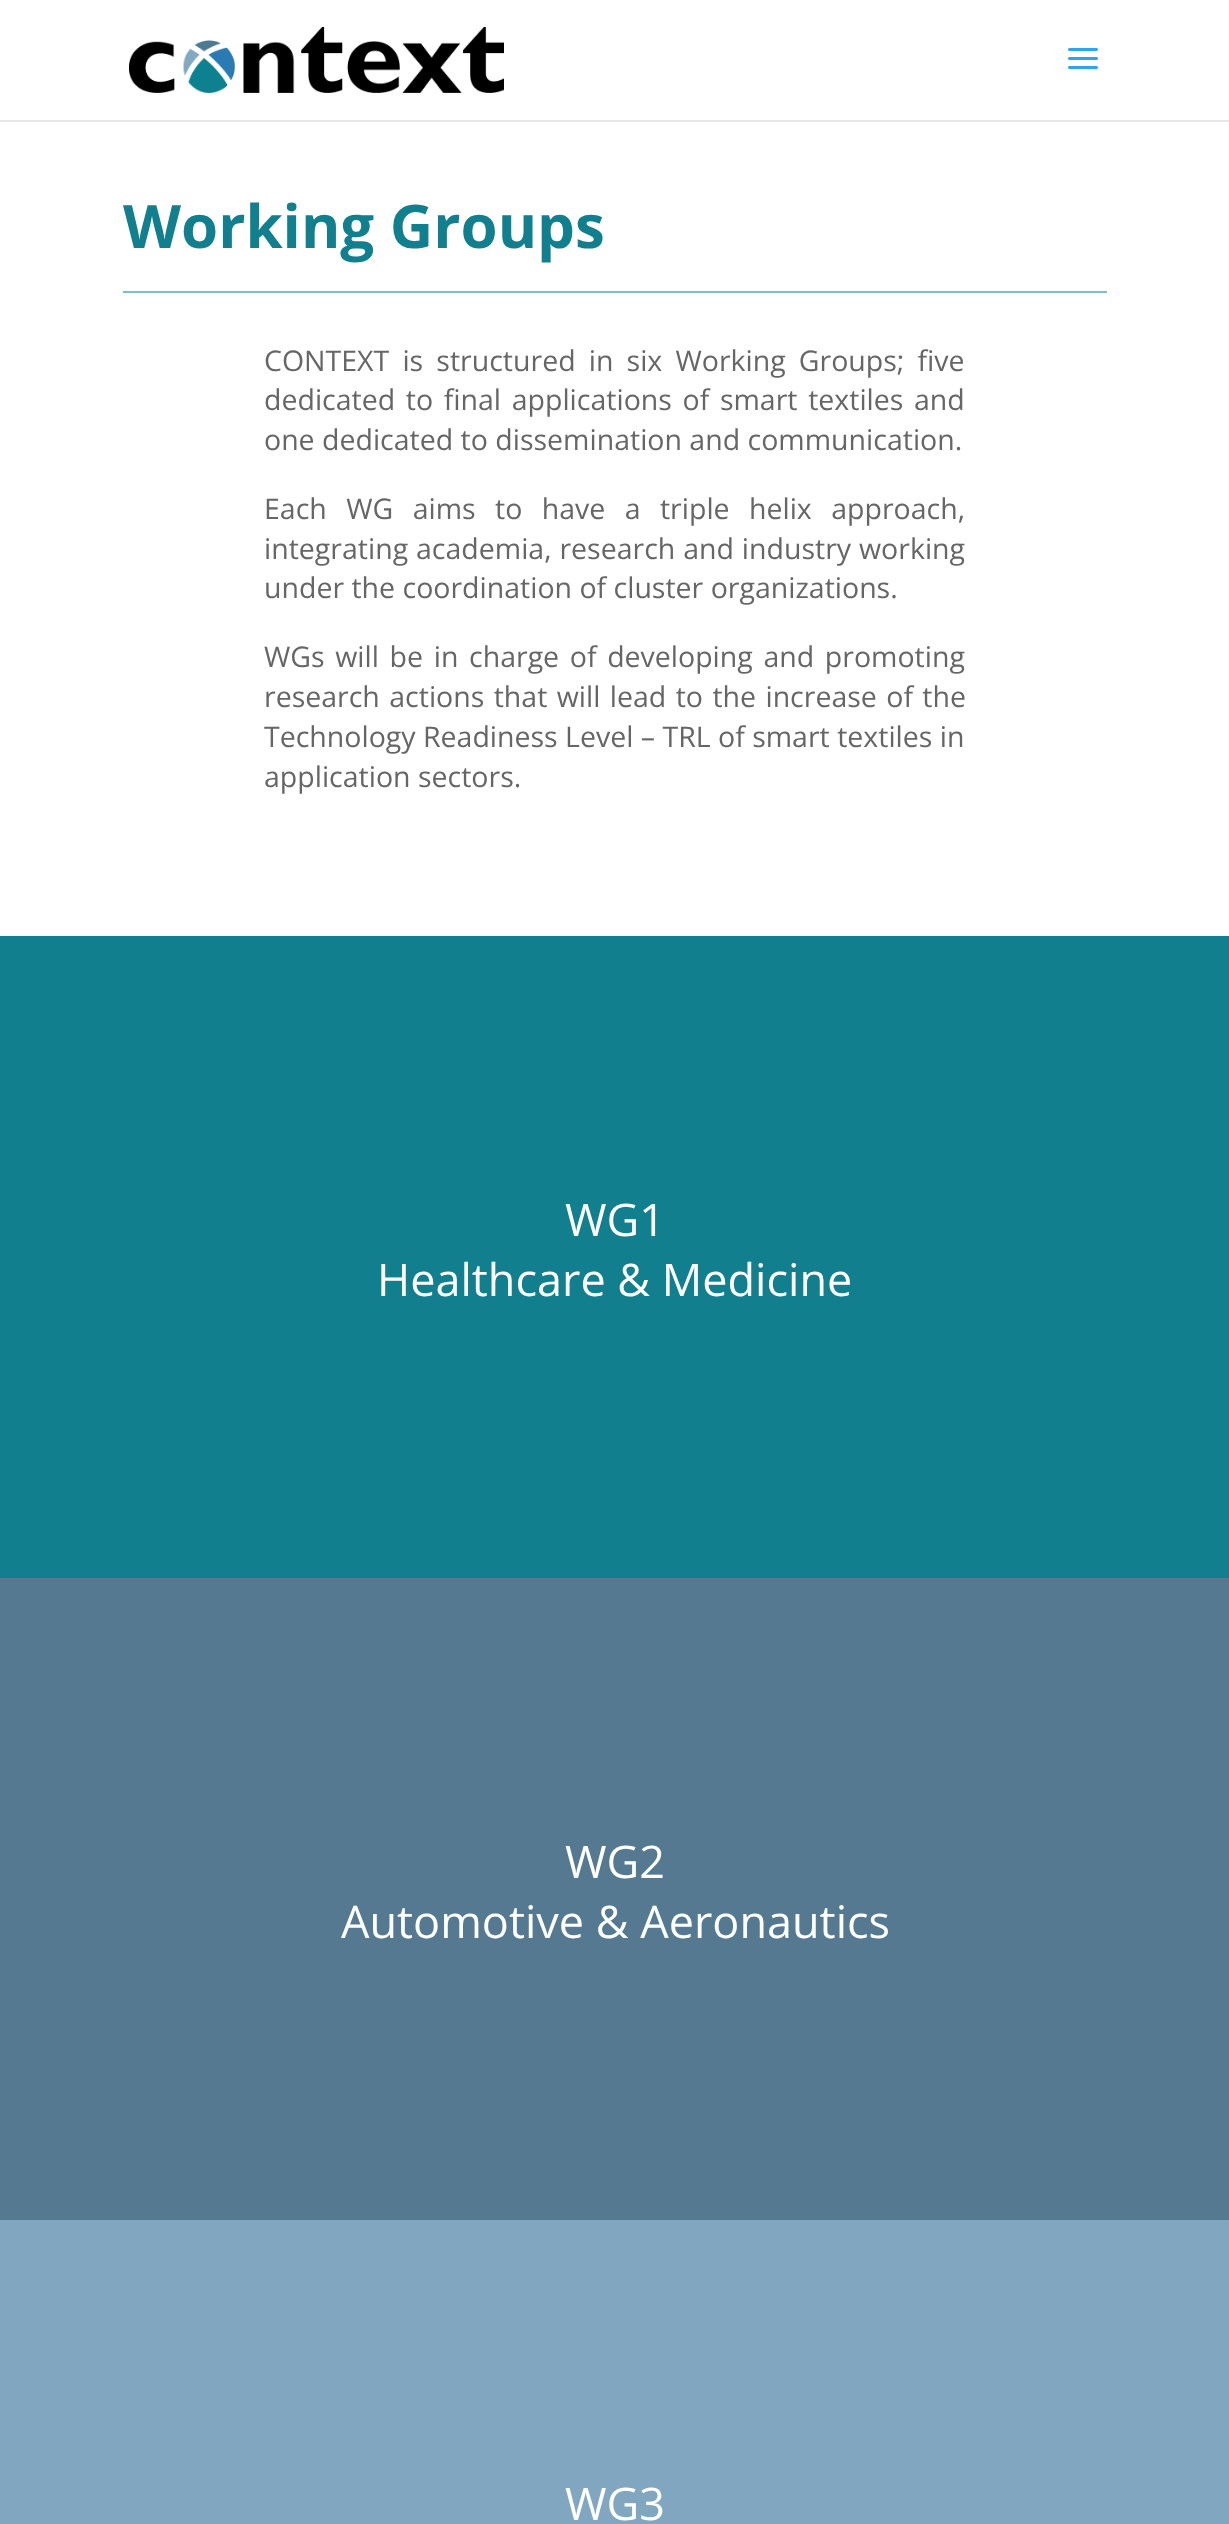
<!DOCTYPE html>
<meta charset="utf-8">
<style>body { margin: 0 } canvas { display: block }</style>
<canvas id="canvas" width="1229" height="2524"></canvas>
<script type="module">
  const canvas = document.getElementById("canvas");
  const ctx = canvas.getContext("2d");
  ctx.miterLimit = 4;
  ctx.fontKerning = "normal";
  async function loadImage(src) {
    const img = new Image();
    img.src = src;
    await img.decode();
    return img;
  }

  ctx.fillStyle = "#ffffff";
  ctx.fillRect(0, 0, 1229, 2524);
  ctx.fillStyle = "#e6e6e6";
  ctx.fillRect(0, 120, 1229, 2);
  ctx.drawImage(await loadImage("img1.png"), 129, 27, 375, 66);
  ctx.drawImage(await loadImage("img2.png"), 1068, 48, 30, 21);
  ctx.font = "bold 60px Open Sans";
  ctx.fillStyle = "#117f8e";
  ctx.fillText("Working Groups", 123, 248);
  ctx.fillStyle = "#7ebec5";
  ctx.fillRect(123, 291, 984, 2);
  ctx.wordSpacing = "5.75px";
  ctx.font = "28.5px Open Sans";
  ctx.fillStyle = "#666666";
  ctx.fillText("CONTEXT is structured in six Working Groups; five", 264, 371);
  ctx.wordSpacing = "3.25px";
  ctx.fillText("dedicated to final applications of smart textiles and", 264, 410);
  ctx.wordSpacing = "0px";
  ctx.fillText("one dedicated to dissemination and communication.", 264, 450);
  ctx.wordSpacing = "12px";
  ctx.fillText("Each WG aims to have a triple helix approach,", 264, 519);
  ctx.wordSpacing = "0.5px";
  ctx.fillText("integrating academia, research and industry working", 264, 559);
  ctx.wordSpacing = "0px";
  ctx.fillText("under the coordination of cluster organizations.", 264, 598);
  ctx.wordSpacing = "3.25px";
  ctx.fillText("WGs will be in charge of developing and promoting", 264, 667);
  ctx.wordSpacing = "2px";
  ctx.fillText("research actions that will lead to the increase of the", 264, 707);
  ctx.wordSpacing = "0px";
  ctx.fillText("Technology Readiness Level – TRL of smart textiles in", 264, 747);
  ctx.fillText("application sectors.", 264, 787);
  ctx.fillStyle = "#117f8e";
  ctx.fillRect(0, 936, 1229, 642);
  ctx.font = "45px Open Sans";
  ctx.fillStyle = "#ffffff";
  ctx.fillText("WG1", 565, 1236);
  ctx.fillText("Healthcare & Medicine", 377, 1296);
  ctx.fillStyle = "#557991";
  ctx.fillRect(0, 1578, 1229, 642);
  ctx.fillStyle = "#ffffff";
  ctx.fillText("WG2", 565, 1878);
  ctx.fillText("Automotive & Aeronautics", 341, 1938);
  ctx.fillStyle = "#81a7c0";
  ctx.fillRect(0, 2220, 1229, 304);
  ctx.fillStyle = "#ffffff";
  ctx.fillText("WG3", 565, 2520);
</script>
